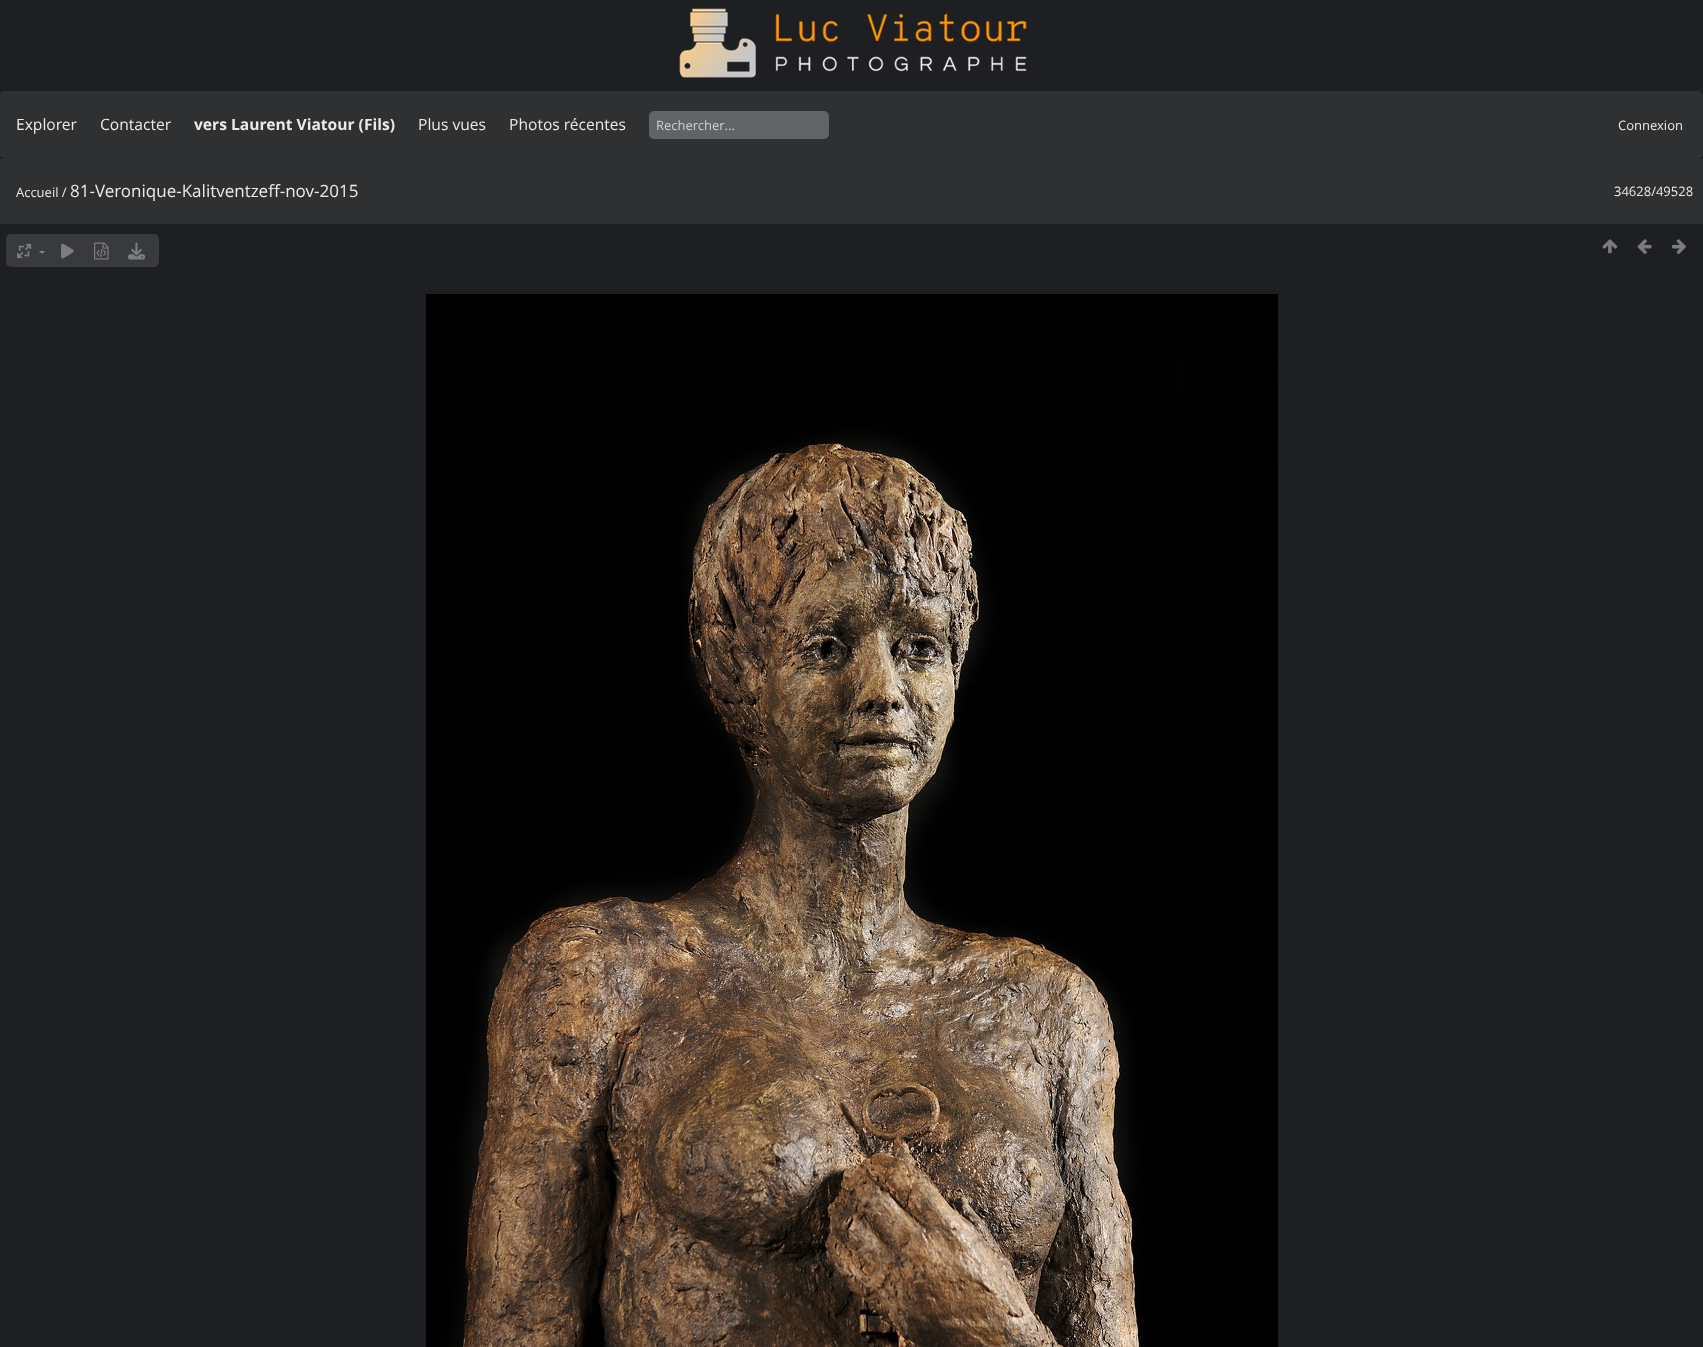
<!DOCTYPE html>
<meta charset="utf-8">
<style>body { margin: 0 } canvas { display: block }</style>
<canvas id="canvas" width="1703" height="1347"></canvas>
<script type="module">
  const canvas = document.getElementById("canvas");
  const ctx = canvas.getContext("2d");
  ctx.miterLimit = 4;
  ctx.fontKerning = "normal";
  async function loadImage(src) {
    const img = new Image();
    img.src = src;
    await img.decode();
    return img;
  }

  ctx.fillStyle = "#1e1f23";
  ctx.fillRect(0, 0, 1703, 1347);
  ctx.drawImage(await loadImage("img1.png"), 679, 6, 348, 72);
  ctx.fillStyle = "#2f3032";
  ctx.beginPath();
  ctx.roundRect(0, 91, 1703, 68, 5);
  ctx.fill();
  ctx.font = "15.6px Open Sans";
  ctx.fillStyle = "#eaeae9";
  ctx.fillText("Explorer", 16, 130);
  ctx.fillText("Contacter", 100, 130);
  ctx.font = "bold 15.6px Open Sans";
  ctx.fillText("vers Laurent Viatour (Fils)", 194, 130);
  ctx.font = "15.6px Open Sans";
  ctx.fillText("Plus vues", 418, 130);
  ctx.fillText("Photos récentes", 509, 130);
  ctx.fillStyle = "#616364";
  ctx.beginPath();
  ctx.roundRect(649, 111, 180, 28, 5);
  ctx.fill();
  ctx.font = "13px Open Sans";
  ctx.fillStyle = "#c7d3e1";
  ctx.fillText("Rechercher...", 656, 130);
  ctx.fillStyle = "#eaeae9";
  ctx.fillText("Connexion", 1618, 130);
  ctx.fillStyle = "#2f3032";
  ctx.fillRect(0, 159, 1703, 65);
  ctx.fillStyle = "#eaeae9";
  ctx.fillText("Accueil /", 16, 197);
  ctx.font = "17px Open Sans";
  ctx.fillText("81-Veronique-Kalitventzeff-nov-2015", 70, 197);
  ctx.font = "13px Open Sans";
  ctx.fillText("34628/49528", 1614, 196);
  ctx.fillStyle = "#393a3d";
  ctx.beginPath();
  ctx.roundRect(6, 234, 153, 33, 5);
  ctx.fill();
  ctx.drawImage(await loadImage("img2.png"), 17, 243, 15, 16);
  ctx.fillStyle = "#848588";
  ctx.beginPath();
  ctx.moveTo(39, 251);
  ctx.lineTo(45, 251);
  ctx.lineTo(42, 254);
  ctx.closePath();
  ctx.fill();
  ctx.drawImage(await loadImage("img3.png"), 61, 243, 13, 16);
  ctx.drawImage(await loadImage("img4.png"), 94, 242, 15, 18);
  ctx.drawImage(await loadImage("img5.png"), 128, 242, 17, 18);
  ctx.drawImage(await loadImage("img6.png"), 1602, 239, 16, 15);
  ctx.drawImage(await loadImage("img7.png"), 1637, 239, 15, 15);
  ctx.drawImage(await loadImage("img8.png"), 1672, 239, 14, 15);
  ctx.drawImage(await loadImage("img9.png"), 426, 294, 852, 1053);
</script>
